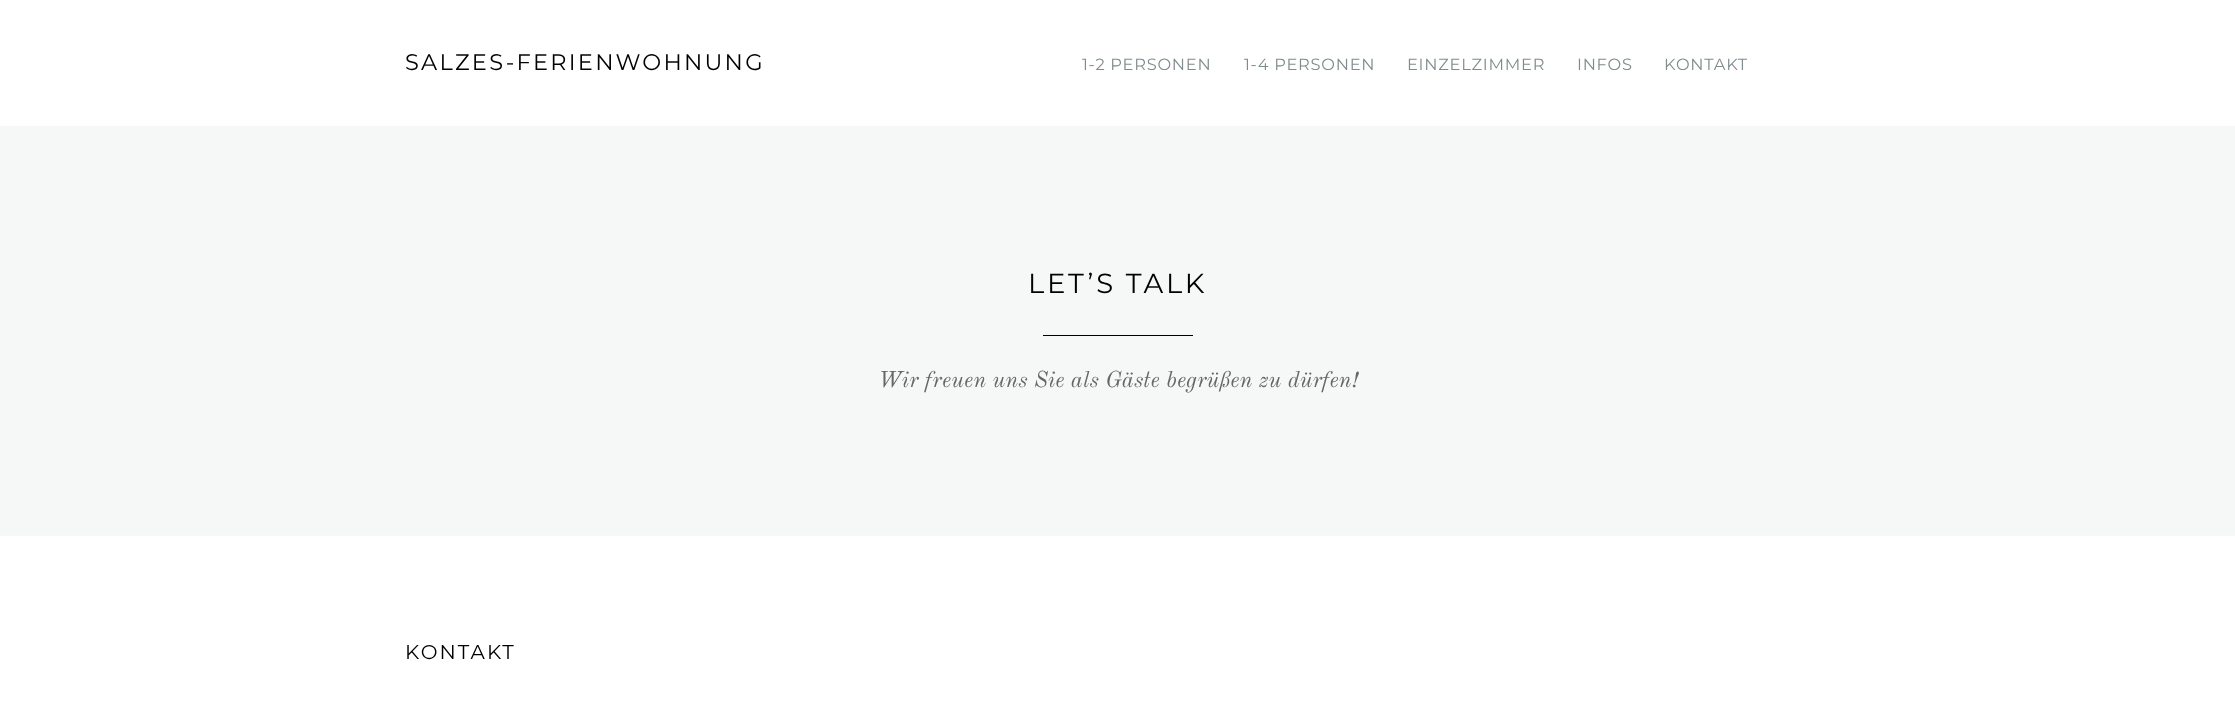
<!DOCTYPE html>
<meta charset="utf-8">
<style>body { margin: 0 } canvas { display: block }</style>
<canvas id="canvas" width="2235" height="704"></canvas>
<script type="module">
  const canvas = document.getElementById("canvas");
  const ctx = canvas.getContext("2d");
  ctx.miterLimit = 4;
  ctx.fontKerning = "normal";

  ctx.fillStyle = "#ffffff";
  ctx.fillRect(0, 0, 2235, 704);
  ctx.letterSpacing = "2.25px";
  ctx.font = "100 22.5px Montserrat";
  ctx.fillStyle = "#000000";
  ctx.fillText("SALZES-FERIENWOHNUNG", 405, 70);
  ctx.letterSpacing = "0.75px";
  ctx.font = "100 16.25px Montserrat";
  ctx.fillStyle = "#7f8c8d";
  ctx.fillText("1-2 PERSONEN", 1082, 70);
  ctx.fillText("1-4 PERSONEN", 1244, 70);
  ctx.fillText("EINZELZIMMER", 1407, 70);
  ctx.fillText("INFOS", 1577, 70);
  ctx.fillText("KONTAKT", 1664, 70);
  ctx.fillStyle = "#f6f8f8";
  ctx.fillRect(0, 126, 2235, 410);
  ctx.letterSpacing = "2.75px";
  ctx.font = "100 27.5px Montserrat";
  ctx.fillStyle = "#000000";
  ctx.fillText("LET’S TALK", 1028, 293);
  ctx.fillRect(1043, 335, 150, 1);
  ctx.letterSpacing = "0px";
  ctx.font = "italic 22.5px Old Standard TT";
  ctx.fillStyle = "#666666";
  ctx.fillText("Wir freuen uns Sie als Gäste begrüßen zu dürfen!", 878, 387);
  ctx.letterSpacing = "2px";
  ctx.font = "100 20px Montserrat";
  ctx.fillStyle = "#000000";
  ctx.fillText("KONTAKT", 405, 659);
</script>
